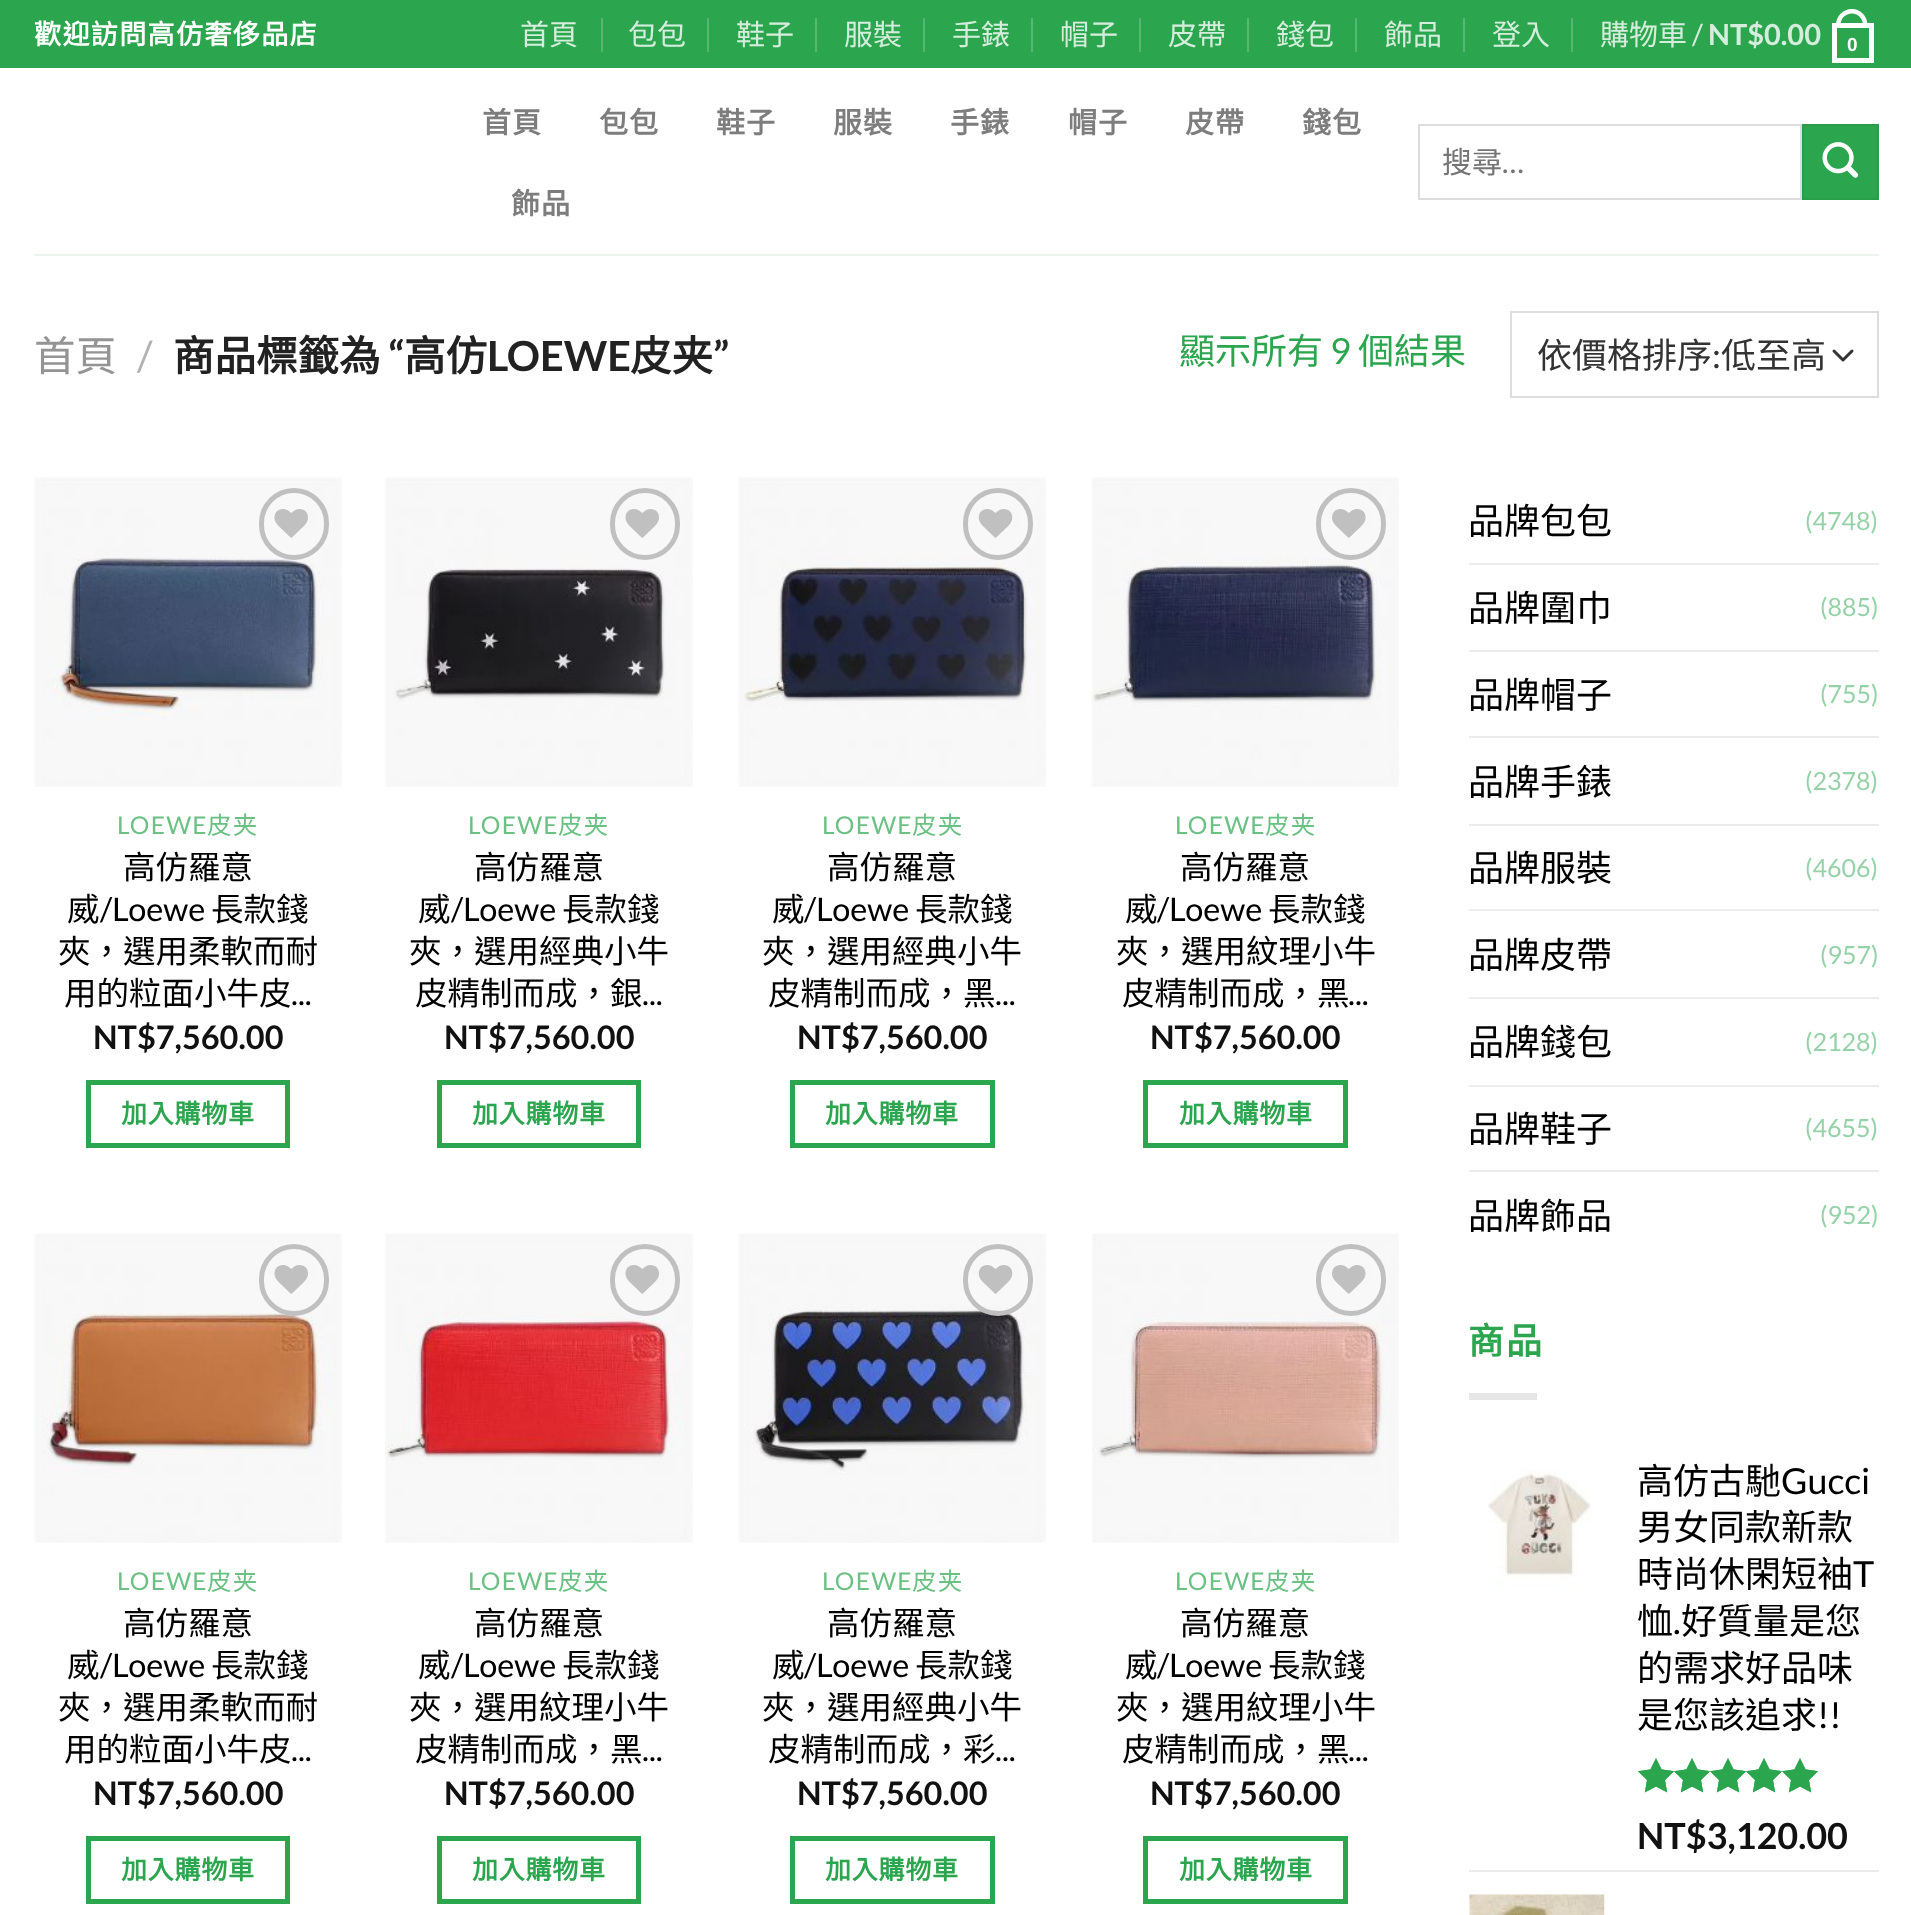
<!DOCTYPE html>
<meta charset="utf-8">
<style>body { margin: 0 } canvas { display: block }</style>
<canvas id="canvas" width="1911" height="1915"></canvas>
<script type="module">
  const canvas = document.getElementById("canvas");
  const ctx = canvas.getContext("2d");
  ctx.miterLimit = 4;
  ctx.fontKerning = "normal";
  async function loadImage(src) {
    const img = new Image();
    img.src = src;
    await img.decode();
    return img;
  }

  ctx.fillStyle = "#ffffff";
  ctx.fillRect(0, 0, 1911, 1915);
  ctx.fillStyle = "#2ba54e";
  ctx.fillRect(0, 0, 1911, 68);
  ctx.letterSpacing = "1.4px";
  ctx.font = "bold 27px Noto Sans CJK TC";
  ctx.fillStyle = "#ffffff";
  ctx.fillText("歡迎訪問高仿奢侈品店", 34, 44);
  ctx.letterSpacing = "0px";
  ctx.font = "29px Noto Sans CJK TC";
  ctx.fillStyle = "#d5eddc";
  ctx.fillText("首頁", 520, 45);
  ctx.fillStyle = "#55b771";
  ctx.fillRect(601, 18, 2, 34);
  ctx.fillStyle = "#d5eddc";
  ctx.fillText("包包", 628, 45);
  ctx.fillStyle = "#55b771";
  ctx.fillRect(707, 18, 2, 34);
  ctx.fillStyle = "#d5eddc";
  ctx.fillText("鞋子", 736, 45);
  ctx.fillStyle = "#55b771";
  ctx.fillRect(815, 18, 2, 34);
  ctx.fillStyle = "#d5eddc";
  ctx.fillText("服裝", 844, 45);
  ctx.fillStyle = "#55b771";
  ctx.fillRect(923, 18, 2, 34);
  ctx.fillStyle = "#d5eddc";
  ctx.fillText("手錶", 952, 45);
  ctx.fillStyle = "#55b771";
  ctx.fillRect(1031, 18, 2, 34);
  ctx.fillStyle = "#d5eddc";
  ctx.fillText("帽子", 1060, 45);
  ctx.fillStyle = "#55b771";
  ctx.fillRect(1139, 18, 2, 34);
  ctx.fillStyle = "#d5eddc";
  ctx.fillText("皮帶", 1168, 45);
  ctx.fillStyle = "#55b771";
  ctx.fillRect(1247, 18, 2, 34);
  ctx.fillStyle = "#d5eddc";
  ctx.fillText("錢包", 1276, 45);
  ctx.fillStyle = "#55b771";
  ctx.fillRect(1355, 18, 2, 34);
  ctx.fillStyle = "#d5eddc";
  ctx.fillText("飾品", 1384, 45);
  ctx.fillStyle = "#55b771";
  ctx.fillRect(1463, 18, 2, 34);
  ctx.fillStyle = "#d5eddc";
  ctx.fillText("登入", 1492, 45);
  ctx.fillStyle = "#55b771";
  ctx.fillRect(1571, 18, 2, 34);
  ctx.fillStyle = "#d5eddc";
  ctx.fillText("購物車", 1600, 45);
  ctx.font = "29px Lato";
  ctx.fillText("/", 1692, 45);
  ctx.font = "bold 29px Lato";
  ctx.fillText("NT$0.00", 1708, 45);
  ctx.strokeStyle = "#ffffff";
  ctx.lineWidth = 5;
  ctx.strokeRect(1834.5, 25.5, 37, 35);
  ctx.fillStyle = "#ffffff";
  ctx.beginPath();
  ctx.moveTo(1852, 9);
  ctx.bezierCurveTo(1860.5, 9, 1867.5, 16, 1867.5, 25);
  ctx.lineTo(1867.5, 27);
  ctx.lineTo(1836, 27);
  ctx.lineTo(1836, 25);
  ctx.bezierCurveTo(1836, 16, 1843, 9, 1852, 9);
  ctx.closePath();
  ctx.moveTo(1852, 13.5);
  ctx.bezierCurveTo(1858, 13.5, 1863, 18.5, 1863, 25);
  ctx.lineTo(1863, 27);
  ctx.lineTo(1840.5, 27);
  ctx.lineTo(1840.5, 25);
  ctx.bezierCurveTo(1840.5, 18.5, 1845.5, 13.5, 1852, 13.5);
  ctx.closePath();
  ctx.fill("evenodd");
  ctx.font = "bold 19px Liberation Sans";
  ctx.fillText("0", 1847, 51);
  ctx.letterSpacing = "1px";
  ctx.font = "bold 29px Noto Sans CJK TC";
  ctx.fillStyle = "#7d7d7d";
  ctx.fillText("首頁", 482, 133);
  ctx.fillText("包包", 599, 133);
  ctx.fillText("鞋子", 716, 133);
  ctx.fillText("服裝", 833, 133);
  ctx.fillText("手錶", 950, 133);
  ctx.fillText("帽子", 1068, 133);
  ctx.fillText("皮帶", 1185, 133);
  ctx.fillText("錢包", 1302, 133);
  ctx.fillText("飾品", 511, 214);
  ctx.strokeStyle = "#dddddd";
  ctx.lineWidth = 2;
  ctx.strokeRect(1419, 125, 382, 74);
  ctx.letterSpacing = "0px";
  ctx.font = "30px Noto Sans CJK TC";
  ctx.fillStyle = "#757575";
  ctx.fillText("搜尋", 1442, 173);
  ctx.font = "30px Lato";
  ctx.fillText("…", 1502, 173);
  ctx.fillStyle = "#2ba54e";
  ctx.beginPath();
  ctx.rect(1803, 125, 75, 74);
  ctx.fill();
  ctx.strokeStyle = "#299d4a";
  ctx.stroke();
  ctx.drawImage(await loadImage("img1.png"), 1822, 142, 37, 36);
  ctx.fillStyle = "#eaf6ed";
  ctx.fillRect(34, 254, 1845, 2);
  ctx.font = "41.5px Noto Sans CJK TC";
  ctx.fillStyle = "#949494";
  ctx.fillText("首頁", 34, 371);
  ctx.font = "41.5px Lato";
  ctx.fillStyle = "#b2b2b2";
  ctx.fillText("/", 137, 371);
  ctx.font = "bold 41.5px Noto Sans CJK TC";
  ctx.fillStyle = "#222222";
  ctx.fillText("商品標籤為", 173, 371);
  ctx.font = "bold 41.5px Lato";
  ctx.fillText("“", 388, 371);
  ctx.font = "bold 41.5px Noto Sans CJK TC";
  ctx.fillText("高仿", 404, 371);
  ctx.font = "bold 41.5px Lato";
  ctx.fillText("LOEWE", 487, 371);
  ctx.font = "bold 41.5px Noto Sans CJK TC";
  ctx.fillText("皮夹", 630, 371);
  ctx.font = "bold 41.5px Lato";
  ctx.fillText("”", 713, 371);
  ctx.font = "36px Noto Sans CJK TC";
  ctx.fillStyle = "#2ba54e";
  ctx.fillText("顯示所有", 1179, 364);
  ctx.font = "36px Lato";
  ctx.fillText("9", 1330, 364);
  ctx.font = "36px Noto Sans CJK TC";
  ctx.fillText("個結果", 1358, 364);
  ctx.beginPath();
  ctx.moveTo(1834, 351);
  ctx.lineTo(1843, 360);
  ctx.lineTo(1852, 351);
  ctx.strokeStyle = "#333333";
  ctx.lineWidth = 3;
  ctx.lineCap = "round";
  ctx.lineJoin = "round";
  ctx.stroke();
  ctx.strokeStyle = "#dddddd";
  ctx.lineWidth = 2;
  ctx.lineJoin = "miter";
  ctx.strokeRect(1511, 312, 367, 85);
  ctx.font = "35px Noto Sans CJK TC";
  ctx.fillStyle = "#333333";
  ctx.fillText("依價格排序", 1537, 368);
  ctx.font = "35px Lato";
  ctx.fillText(":", 1712, 368);
  ctx.font = "35px Noto Sans CJK TC";
  ctx.fillText("低至高", 1721, 368);
  ctx.drawImage(await loadImage("img2.png"), 34, 477, 308, 310);
  ctx.beginPath();
  ctx.roundRect(261.5, 490.5, 65, 67, 32.5);
  ctx.strokeStyle = "#c0c0c0";
  ctx.lineWidth = 5;
  ctx.stroke();
  ctx.drawImage(await loadImage("img3.png"), 274, 509, 34, 29);
  ctx.letterSpacing = "1.25px";
  ctx.font = "24.5px Lato";
  ctx.fillStyle = "#6bc083";
  ctx.fillText("LOEWE", 117, 834);
  ctx.font = "24.5px Noto Sans CJK TC";
  ctx.fillText("皮夹", 207, 834);
  ctx.letterSpacing = "0px";
  ctx.font = "32.5px Noto Sans CJK TC";
  ctx.fillStyle = "#000000";
  ctx.fillText("高仿羅意", 123, 879);
  ctx.fillText("威", 67, 921);
  ctx.font = "32.5px Lato";
  ctx.fillText("/Loewe", 100, 921);
  ctx.font = "32.5px Noto Sans CJK TC";
  ctx.fillText("長款錢", 211, 921);
  ctx.fillText("夾，選用柔軟而耐", 58, 963);
  ctx.fillText("用的粒面小牛皮", 64, 1005);
  ctx.font = "32.5px Lato";
  ctx.fillText("...", 291, 1005);
  ctx.font = "bold 32.5px Lato";
  ctx.fillStyle = "#111111";
  ctx.fillText("NT$7,560.00", 93, 1049);
  ctx.strokeStyle = "#2ba54e";
  ctx.strokeRect(88.5, 1082.5, 199, 63);
  ctx.letterSpacing = "0.75px";
  ctx.font = "bold 26px Noto Sans CJK TC";
  ctx.fillStyle = "#2ba54e";
  ctx.fillText("加入購物車", 121, 1123);
  ctx.drawImage(await loadImage("img4.png"), 385, 477, 308, 310);
  ctx.beginPath();
  ctx.roundRect(612.5, 490.5, 65, 67, 32.5);
  ctx.strokeStyle = "#c0c0c0";
  ctx.stroke();
  ctx.drawImage(await loadImage("img3.png"), 625, 509, 34, 29);
  ctx.letterSpacing = "1.25px";
  ctx.font = "24.5px Lato";
  ctx.fillStyle = "#6bc083";
  ctx.fillText("LOEWE", 468, 834);
  ctx.font = "24.5px Noto Sans CJK TC";
  ctx.fillText("皮夹", 558, 834);
  ctx.letterSpacing = "0px";
  ctx.font = "32.5px Noto Sans CJK TC";
  ctx.fillStyle = "#000000";
  ctx.fillText("高仿羅意", 474, 879);
  ctx.fillText("威", 418, 921);
  ctx.font = "32.5px Lato";
  ctx.fillText("/Loewe", 451, 921);
  ctx.font = "32.5px Noto Sans CJK TC";
  ctx.fillText("長款錢", 562, 921);
  ctx.fillText("夾，選用經典小牛", 409, 963);
  ctx.fillText("皮精制而成，銀", 415, 1005);
  ctx.font = "32.5px Lato";
  ctx.fillText("...", 642, 1005);
  ctx.font = "bold 32.5px Lato";
  ctx.fillStyle = "#111111";
  ctx.fillText("NT$7,560.00", 444, 1049);
  ctx.strokeStyle = "#2ba54e";
  ctx.strokeRect(439.5, 1082.5, 199, 63);
  ctx.letterSpacing = "0.75px";
  ctx.font = "bold 26px Noto Sans CJK TC";
  ctx.fillStyle = "#2ba54e";
  ctx.fillText("加入購物車", 472, 1123);
  ctx.drawImage(await loadImage("img5.png"), 738, 477, 308, 310);
  ctx.beginPath();
  ctx.roundRect(965.5, 490.5, 65, 67, 32.5);
  ctx.strokeStyle = "#c0c0c0";
  ctx.stroke();
  ctx.drawImage(await loadImage("img6.png"), 978, 509, 35, 29);
  ctx.letterSpacing = "1.25px";
  ctx.font = "24.5px Lato";
  ctx.fillStyle = "#6bc083";
  ctx.fillText("LOEWE", 822, 834);
  ctx.font = "24.5px Noto Sans CJK TC";
  ctx.fillText("皮夹", 912, 834);
  ctx.letterSpacing = "0px";
  ctx.font = "32.5px Noto Sans CJK TC";
  ctx.fillStyle = "#000000";
  ctx.fillText("高仿羅意", 827, 879);
  ctx.fillText("威", 772, 921);
  ctx.font = "32.5px Lato";
  ctx.fillText("/Loewe", 804, 921);
  ctx.font = "32.5px Noto Sans CJK TC";
  ctx.fillText("長款錢", 915, 921);
  ctx.fillText("夾，選用經典小牛", 762, 963);
  ctx.fillText("皮精制而成，黑", 768, 1005);
  ctx.font = "32.5px Lato";
  ctx.fillText("...", 995, 1005);
  ctx.font = "bold 32.5px Lato";
  ctx.fillStyle = "#111111";
  ctx.fillText("NT$7,560.00", 797, 1049);
  ctx.strokeStyle = "#2ba54e";
  ctx.strokeRect(792.5, 1082.5, 200, 63);
  ctx.letterSpacing = "0.75px";
  ctx.font = "bold 26px Noto Sans CJK TC";
  ctx.fillStyle = "#2ba54e";
  ctx.fillText("加入購物車", 825, 1123);
  ctx.drawImage(await loadImage("img7.png"), 1091, 477, 308, 310);
  ctx.beginPath();
  ctx.roundRect(1318.5, 490.5, 65, 67, 32.5);
  ctx.strokeStyle = "#c0c0c0";
  ctx.stroke();
  ctx.drawImage(await loadImage("img8.png"), 1332, 509, 34, 29);
  ctx.letterSpacing = "1.25px";
  ctx.font = "24.5px Lato";
  ctx.fillStyle = "#6bc083";
  ctx.fillText("LOEWE", 1175, 834);
  ctx.font = "24.5px Noto Sans CJK TC";
  ctx.fillText("皮夹", 1265, 834);
  ctx.letterSpacing = "0px";
  ctx.font = "32.5px Noto Sans CJK TC";
  ctx.fillStyle = "#000000";
  ctx.fillText("高仿羅意", 1180, 879);
  ctx.fillText("威", 1125, 921);
  ctx.font = "32.5px Lato";
  ctx.fillText("/Loewe", 1157, 921);
  ctx.font = "32.5px Noto Sans CJK TC";
  ctx.fillText("長款錢", 1268, 921);
  ctx.fillText("夾，選用紋理小牛", 1116, 963);
  ctx.fillText("皮精制而成，黑", 1122, 1005);
  ctx.font = "32.5px Lato";
  ctx.fillText("...", 1348, 1005);
  ctx.font = "bold 32.5px Lato";
  ctx.fillStyle = "#111111";
  ctx.fillText("NT$7,560.00", 1150, 1049);
  ctx.strokeStyle = "#2ba54e";
  ctx.strokeRect(1145.5, 1082.5, 200, 63);
  ctx.letterSpacing = "0.75px";
  ctx.font = "bold 26px Noto Sans CJK TC";
  ctx.fillStyle = "#2ba54e";
  ctx.fillText("加入購物車", 1179, 1123);
  ctx.drawImage(await loadImage("img9.png"), 34, 1233, 308, 310);
  ctx.beginPath();
  ctx.roundRect(261.5, 1246.5, 65, 67, 32.5);
  ctx.strokeStyle = "#c0c0c0";
  ctx.stroke();
  ctx.drawImage(await loadImage("img3.png"), 274, 1265, 34, 29);
  ctx.letterSpacing = "1.25px";
  ctx.font = "24.5px Lato";
  ctx.fillStyle = "#6bc083";
  ctx.fillText("LOEWE", 117, 1590);
  ctx.font = "24.5px Noto Sans CJK TC";
  ctx.fillText("皮夹", 207, 1590);
  ctx.letterSpacing = "0px";
  ctx.font = "32.5px Noto Sans CJK TC";
  ctx.fillStyle = "#000000";
  ctx.fillText("高仿羅意", 123, 1635);
  ctx.fillText("威", 67, 1677);
  ctx.font = "32.5px Lato";
  ctx.fillText("/Loewe", 100, 1677);
  ctx.font = "32.5px Noto Sans CJK TC";
  ctx.fillText("長款錢", 211, 1677);
  ctx.fillText("夾，選用柔軟而耐", 58, 1719);
  ctx.fillText("用的粒面小牛皮", 64, 1761);
  ctx.font = "32.5px Lato";
  ctx.fillText("...", 291, 1761);
  ctx.font = "bold 32.5px Lato";
  ctx.fillStyle = "#111111";
  ctx.fillText("NT$7,560.00", 93, 1805);
  ctx.strokeStyle = "#2ba54e";
  ctx.strokeRect(88.5, 1838.5, 199, 63);
  ctx.letterSpacing = "0.75px";
  ctx.font = "bold 26px Noto Sans CJK TC";
  ctx.fillStyle = "#2ba54e";
  ctx.fillText("加入購物車", 121, 1879);
  ctx.drawImage(await loadImage("img10.png"), 385, 1233, 308, 310);
  ctx.beginPath();
  ctx.roundRect(612.5, 1246.5, 65, 67, 32.5);
  ctx.strokeStyle = "#c0c0c0";
  ctx.stroke();
  ctx.drawImage(await loadImage("img3.png"), 625, 1265, 34, 29);
  ctx.letterSpacing = "1.25px";
  ctx.font = "24.5px Lato";
  ctx.fillStyle = "#6bc083";
  ctx.fillText("LOEWE", 468, 1590);
  ctx.font = "24.5px Noto Sans CJK TC";
  ctx.fillText("皮夹", 558, 1590);
  ctx.letterSpacing = "0px";
  ctx.font = "32.5px Noto Sans CJK TC";
  ctx.fillStyle = "#000000";
  ctx.fillText("高仿羅意", 474, 1635);
  ctx.fillText("威", 418, 1677);
  ctx.font = "32.5px Lato";
  ctx.fillText("/Loewe", 451, 1677);
  ctx.font = "32.5px Noto Sans CJK TC";
  ctx.fillText("長款錢", 562, 1677);
  ctx.fillText("夾，選用紋理小牛", 409, 1719);
  ctx.fillText("皮精制而成，黑", 415, 1761);
  ctx.font = "32.5px Lato";
  ctx.fillText("...", 642, 1761);
  ctx.font = "bold 32.5px Lato";
  ctx.fillStyle = "#111111";
  ctx.fillText("NT$7,560.00", 444, 1805);
  ctx.strokeStyle = "#2ba54e";
  ctx.strokeRect(439.5, 1838.5, 199, 63);
  ctx.letterSpacing = "0.75px";
  ctx.font = "bold 26px Noto Sans CJK TC";
  ctx.fillStyle = "#2ba54e";
  ctx.fillText("加入購物車", 472, 1879);
  ctx.drawImage(await loadImage("img11.png"), 738, 1233, 308, 310);
  ctx.beginPath();
  ctx.roundRect(965.5, 1246.5, 65, 67, 32.5);
  ctx.strokeStyle = "#c0c0c0";
  ctx.stroke();
  ctx.drawImage(await loadImage("img6.png"), 978, 1265, 35, 29);
  ctx.letterSpacing = "1.25px";
  ctx.font = "24.5px Lato";
  ctx.fillStyle = "#6bc083";
  ctx.fillText("LOEWE", 822, 1590);
  ctx.font = "24.5px Noto Sans CJK TC";
  ctx.fillText("皮夹", 912, 1590);
  ctx.letterSpacing = "0px";
  ctx.font = "32.5px Noto Sans CJK TC";
  ctx.fillStyle = "#000000";
  ctx.fillText("高仿羅意", 827, 1635);
  ctx.fillText("威", 772, 1677);
  ctx.font = "32.5px Lato";
  ctx.fillText("/Loewe", 804, 1677);
  ctx.font = "32.5px Noto Sans CJK TC";
  ctx.fillText("長款錢", 915, 1677);
  ctx.fillText("夾，選用經典小牛", 762, 1719);
  ctx.fillText("皮精制而成，彩", 768, 1761);
  ctx.font = "32.5px Lato";
  ctx.fillText("...", 995, 1761);
  ctx.font = "bold 32.5px Lato";
  ctx.fillStyle = "#111111";
  ctx.fillText("NT$7,560.00", 797, 1805);
  ctx.strokeStyle = "#2ba54e";
  ctx.strokeRect(792.5, 1838.5, 200, 63);
  ctx.letterSpacing = "0.75px";
  ctx.font = "bold 26px Noto Sans CJK TC";
  ctx.fillStyle = "#2ba54e";
  ctx.fillText("加入購物車", 825, 1879);
  ctx.drawImage(await loadImage("img12.png"), 1092, 1233, 307, 310);
  ctx.beginPath();
  ctx.roundRect(1318.5, 1246.5, 65, 67, 32.5);
  ctx.strokeStyle = "#c0c0c0";
  ctx.stroke();
  ctx.drawImage(await loadImage("img8.png"), 1332, 1265, 34, 29);
  ctx.letterSpacing = "1.25px";
  ctx.font = "24.5px Lato";
  ctx.fillStyle = "#6bc083";
  ctx.fillText("LOEWE", 1175, 1590);
  ctx.font = "24.5px Noto Sans CJK TC";
  ctx.fillText("皮夹", 1265, 1590);
  ctx.letterSpacing = "0px";
  ctx.font = "32.5px Noto Sans CJK TC";
  ctx.fillStyle = "#000000";
  ctx.fillText("高仿羅意", 1180, 1635);
  ctx.fillText("威", 1125, 1677);
  ctx.font = "32.5px Lato";
  ctx.fillText("/Loewe", 1157, 1677);
  ctx.font = "32.5px Noto Sans CJK TC";
  ctx.fillText("長款錢", 1268, 1677);
  ctx.fillText("夾，選用紋理小牛", 1116, 1719);
  ctx.fillText("皮精制而成，黑", 1122, 1761);
  ctx.font = "32.5px Lato";
  ctx.fillText("...", 1348, 1761);
  ctx.font = "bold 32.5px Lato";
  ctx.fillStyle = "#111111";
  ctx.fillText("NT$7,560.00", 1150, 1805);
  ctx.strokeStyle = "#2ba54e";
  ctx.strokeRect(1145.5, 1838.5, 200, 63);
  ctx.letterSpacing = "0.75px";
  ctx.font = "bold 26px Noto Sans CJK TC";
  ctx.fillStyle = "#2ba54e";
  ctx.fillText("加入購物車", 1179, 1879);
  ctx.letterSpacing = "0px";
  ctx.font = "36px Noto Sans CJK TC";
  ctx.fillStyle = "#000000";
  ctx.fillText("品牌包包", 1468, 534);
  ctx.font = "25px Lato";
  ctx.fillStyle = "#95d2a7";
  ctx.fillText("(4748)", 1805, 530);
  ctx.fillStyle = "#ececec";
  ctx.fillRect(1469, 563, 410, 2);
  ctx.font = "36px Noto Sans CJK TC";
  ctx.fillStyle = "#000000";
  ctx.fillText("品牌圍巾", 1468, 621);
  ctx.font = "25px Lato";
  ctx.fillStyle = "#95d2a7";
  ctx.fillText("(885)", 1820, 616);
  ctx.fillStyle = "#ececec";
  ctx.fillRect(1469, 650, 410, 2);
  ctx.font = "36px Noto Sans CJK TC";
  ctx.fillStyle = "#000000";
  ctx.fillText("品牌帽子", 1468, 708);
  ctx.font = "25px Lato";
  ctx.fillStyle = "#95d2a7";
  ctx.fillText("(755)", 1820, 703);
  ctx.fillStyle = "#ececec";
  ctx.fillRect(1469, 736, 410, 2);
  ctx.font = "36px Noto Sans CJK TC";
  ctx.fillStyle = "#000000";
  ctx.fillText("品牌手錶", 1468, 795);
  ctx.font = "25px Lato";
  ctx.fillStyle = "#95d2a7";
  ctx.fillText("(2378)", 1805, 790);
  ctx.fillStyle = "#ececec";
  ctx.fillRect(1469, 824, 410, 2);
  ctx.font = "36px Noto Sans CJK TC";
  ctx.fillStyle = "#000000";
  ctx.fillText("品牌服裝", 1468, 881);
  ctx.font = "25px Lato";
  ctx.fillStyle = "#95d2a7";
  ctx.fillText("(4606)", 1805, 877);
  ctx.fillStyle = "#ececec";
  ctx.fillRect(1469, 909, 410, 2);
  ctx.font = "36px Noto Sans CJK TC";
  ctx.fillStyle = "#000000";
  ctx.fillText("品牌皮帶", 1468, 968);
  ctx.font = "25px Lato";
  ctx.fillStyle = "#95d2a7";
  ctx.fillText("(957)", 1820, 964);
  ctx.fillStyle = "#ececec";
  ctx.fillRect(1469, 997, 410, 2);
  ctx.font = "36px Noto Sans CJK TC";
  ctx.fillStyle = "#000000";
  ctx.fillText("品牌錢包", 1468, 1055);
  ctx.font = "25px Lato";
  ctx.fillStyle = "#95d2a7";
  ctx.fillText("(2128)", 1805, 1051);
  ctx.fillStyle = "#ececec";
  ctx.fillRect(1469, 1085, 410, 2);
  ctx.font = "36px Noto Sans CJK TC";
  ctx.fillStyle = "#000000";
  ctx.fillText("品牌鞋子", 1468, 1142);
  ctx.font = "25px Lato";
  ctx.fillStyle = "#95d2a7";
  ctx.fillText("(4655)", 1805, 1137);
  ctx.fillStyle = "#ececec";
  ctx.fillRect(1469, 1170, 410, 2);
  ctx.font = "36px Noto Sans CJK TC";
  ctx.fillStyle = "#000000";
  ctx.fillText("品牌飾品", 1468, 1229);
  ctx.font = "25px Lato";
  ctx.fillStyle = "#95d2a7";
  ctx.fillText("(952)", 1820, 1224);
  ctx.letterSpacing = "2px";
  ctx.font = "bold 36px Noto Sans CJK TC";
  ctx.fillStyle = "#2ba54e";
  ctx.fillText("商品", 1468, 1354);
  ctx.fillStyle = "#e6e6e6";
  ctx.fillRect(1469, 1393, 68, 7);
  ctx.drawImage(await loadImage("img13.png"), 1488, 1469, 103, 118);
  ctx.letterSpacing = "0px";
  ctx.font = "36px Noto Sans CJK TC";
  ctx.fillStyle = "#000000";
  ctx.fillText("高仿古馳", 1637, 1494);
  ctx.font = "36px Lato";
  ctx.fillText("Gucci", 1781, 1494);
  ctx.font = "36px Noto Sans CJK TC";
  ctx.fillText("男女同款新款", 1637, 1540);
  ctx.fillText("時尚休閑短袖", 1637, 1587);
  ctx.font = "36px Lato";
  ctx.fillText("T", 1853, 1587);
  ctx.font = "36px Noto Sans CJK TC";
  ctx.fillText("恤", 1637, 1634);
  ctx.font = "36px Lato";
  ctx.fillText(".", 1673, 1634);
  ctx.font = "36px Noto Sans CJK TC";
  ctx.fillText("好質量是您", 1681, 1634);
  ctx.fillText("的需求好品味", 1637, 1681);
  ctx.fillText("是您該追求", 1637, 1728);
  ctx.font = "36px Lato";
  ctx.fillText("!!", 1817, 1728);
  ctx.drawImage(await loadImage("img14.png"), 1638, 1758, 180, 35);
  ctx.drawImage(await loadImage("img15.png"), 1638, 1758, 180, 35);
  ctx.font = "bold 36px Lato";
  ctx.fillStyle = "#111111";
  ctx.fillText("NT$3,120.00", 1637, 1849);
  ctx.fillStyle = "#ececec";
  ctx.fillRect(1469, 1870, 410, 2);
  ctx.drawImage(await loadImage("img16.png"), 1469, 1894, 136, 21);
</script>
